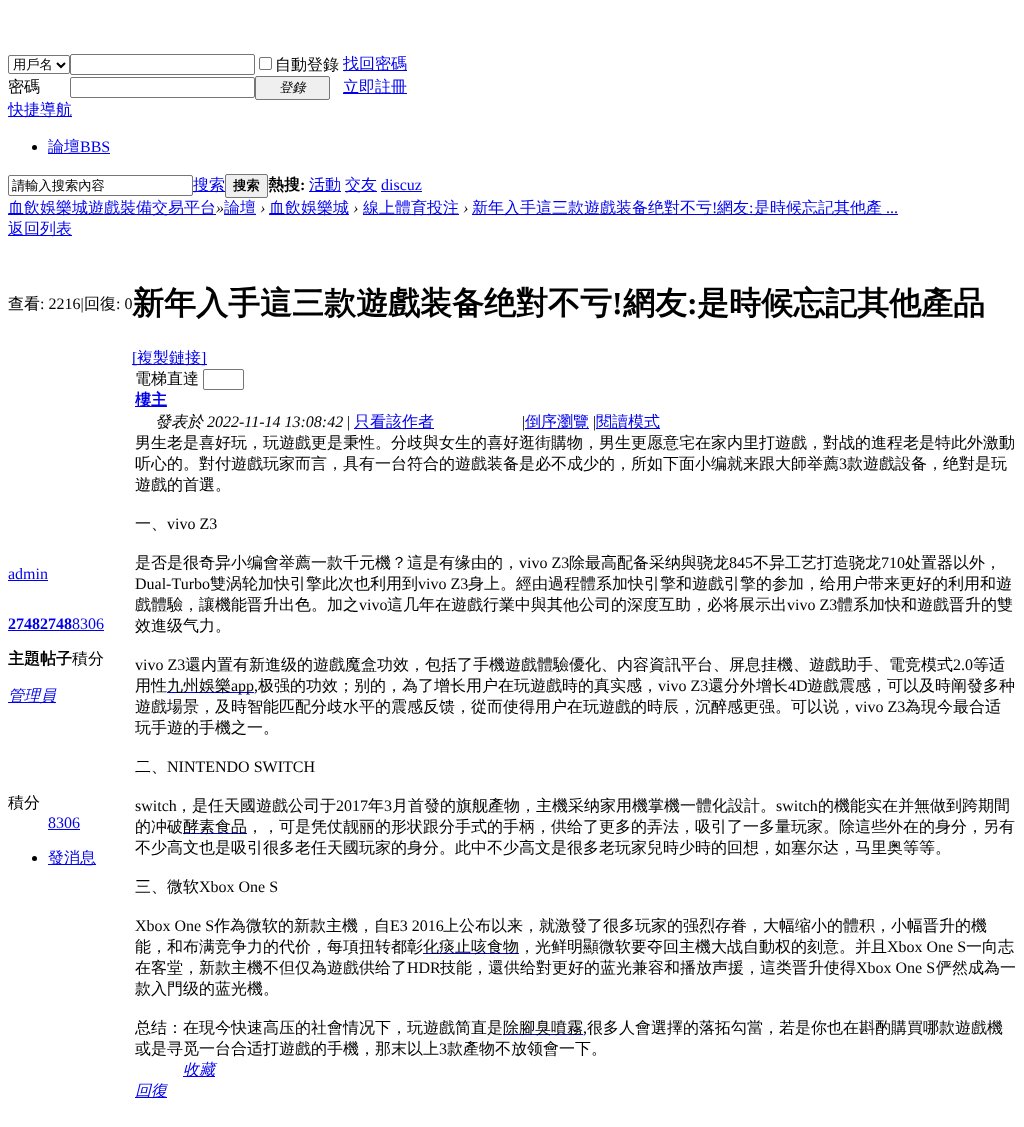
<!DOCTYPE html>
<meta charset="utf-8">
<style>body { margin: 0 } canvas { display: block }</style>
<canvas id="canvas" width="1024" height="1127"></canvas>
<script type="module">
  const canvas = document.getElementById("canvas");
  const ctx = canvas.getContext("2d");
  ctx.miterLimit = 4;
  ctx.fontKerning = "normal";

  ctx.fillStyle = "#ffffff";
  ctx.fillRect(0, 0, 1024, 1127);
  ctx.beginPath();
  ctx.roundRect(8.5, 55.5, 61, 18, 1.5);
  ctx.strokeStyle = "#767676";
  ctx.stroke();
  ctx.beginPath();
  ctx.moveTo(57, 63);
  ctx.lineTo(61, 67);
  ctx.lineTo(65, 63);
  ctx.strokeStyle = "#000000";
  ctx.lineWidth = 2;
  ctx.stroke();
  ctx.font = "500 13.25px WenQuanYi Zen Hei";
  ctx.fillStyle = "#000000";
  ctx.fillText("用戶名", 13, 69);
  ctx.beginPath();
  ctx.roundRect(70.5, 54.5, 184, 20, 1.5);
  ctx.strokeStyle = "#767676";
  ctx.lineWidth = 1;
  ctx.stroke();
  ctx.beginPath();
  ctx.roundRect(259.5, 57.5, 12, 12, 1.5);
  ctx.stroke();
  ctx.font = "500 16px WenQuanYi Zen Hei";
  ctx.fillText("自動登錄", 275, 70);
  ctx.fillStyle = "#0000ee";
  ctx.fillRect(343, 70, 64, 1);
  ctx.fillText("找回密碼", 343, 69);
  ctx.fillStyle = "#000000";
  ctx.fillText("密碼", 8, 92);
  ctx.beginPath();
  ctx.roundRect(70.5, 77.5, 184, 20, 1.5);
  ctx.stroke();
  ctx.fillStyle = "#efefef";
  ctx.beginPath();
  ctx.roundRect(255.5, 76.5, 74, 23, 1.5);
  ctx.fill();
  ctx.stroke();
  ctx.font = "italic 500 13.25px WenQuanYi Zen Hei";
  ctx.fillStyle = "#000000";
  ctx.fillText("登錄", 279, 92);
  ctx.fillStyle = "#0000ee";
  ctx.fillRect(343, 93, 64, 1);
  ctx.font = "500 16px WenQuanYi Zen Hei";
  ctx.fillText("立即註冊", 343, 92);
  ctx.fillRect(8, 116, 64, 1);
  ctx.fillText("快捷導航", 8, 115);
  ctx.fillStyle = "#000000";
  ctx.beginPath();
  ctx.arc(34.5, 147.5, 2.5, 0, Math.PI * 2);
  ctx.fill();
  ctx.fillStyle = "#0000ee";
  ctx.fillRect(48, 153, 62, 1);
  ctx.fillText("論壇", 48, 152);
  ctx.font = "16px Liberation Serif";
  ctx.fillText("BBS", 80, 152);
  ctx.beginPath();
  ctx.roundRect(8.5, 175.5, 184, 20, 1.5);
  ctx.stroke();
  ctx.font = "500 13.25px WenQuanYi Zen Hei";
  ctx.fillStyle = "#000000";
  ctx.fillText("請輸入搜索內容", 12, 190);
  ctx.fillStyle = "#0000ee";
  ctx.fillRect(193, 191, 32, 1);
  ctx.font = "500 16px WenQuanYi Zen Hei";
  ctx.fillText("搜索", 193, 190);
  ctx.fillStyle = "#efefef";
  ctx.beginPath();
  ctx.roundRect(225.5, 174.5, 42, 23, 1.5);
  ctx.fill();
  ctx.stroke();
  ctx.font = "bold 13.25px WenQuanYi Zen Hei";
  ctx.fillStyle = "#000000";
  ctx.fillText("搜索", 233, 190);
  ctx.font = "bold 16px WenQuanYi Zen Hei";
  ctx.fillText("熱搜", 268, 190);
  ctx.font = "bold 16px Liberation Serif";
  ctx.fillText(":", 300, 190);
  ctx.fillStyle = "#0000ee";
  ctx.fillRect(309, 191, 32, 1);
  ctx.font = "500 16px WenQuanYi Zen Hei";
  ctx.fillText("活動", 309, 190);
  ctx.fillRect(345, 191, 32, 1);
  ctx.fillText("交友", 345, 190);
  ctx.font = "16px Liberation Serif";
  ctx.fillText("discuz", 381, 190);
  ctx.fillRect(381, 191, 41, 1);
  ctx.fillRect(8, 214, 208, 1);
  ctx.font = "500 16px WenQuanYi Zen Hei";
  ctx.fillText("血飲娛樂城遊戲裝備交易平台", 8, 213);
  ctx.font = "italic 16px Liberation Serif";
  ctx.fillStyle = "#000000";
  ctx.fillText("»", 216, 213);
  ctx.fillStyle = "#0000ee";
  ctx.fillRect(224, 214, 32, 1);
  ctx.font = "500 16px WenQuanYi Zen Hei";
  ctx.fillText("論壇", 224, 213);
  ctx.font = "italic 16px Liberation Serif";
  ctx.fillStyle = "#000000";
  ctx.fillText("›", 260, 213);
  ctx.fillStyle = "#0000ee";
  ctx.fillRect(269, 214, 80, 1);
  ctx.font = "500 16px WenQuanYi Zen Hei";
  ctx.fillText("血飲娛樂城", 269, 213);
  ctx.font = "italic 16px Liberation Serif";
  ctx.fillStyle = "#000000";
  ctx.fillText("›", 353, 213);
  ctx.fillStyle = "#0000ee";
  ctx.fillRect(363, 214, 96, 1);
  ctx.font = "500 16px WenQuanYi Zen Hei";
  ctx.fillText("線上體育投注", 363, 213);
  ctx.font = "italic 16px Liberation Serif";
  ctx.fillStyle = "#000000";
  ctx.fillText("›", 463, 213);
  ctx.fillStyle = "#0000ee";
  ctx.fillRect(472, 214, 426, 1);
  ctx.font = "500 16px WenQuanYi Zen Hei";
  ctx.fillText("新年入手這三款遊戲装备绝對不亏", 472, 213);
  ctx.font = "16px Liberation Serif";
  ctx.fillText("!", 712, 213);
  ctx.font = "500 16px WenQuanYi Zen Hei";
  ctx.fillText("網友", 717, 213);
  ctx.font = "16px Liberation Serif";
  ctx.fillText(":", 749, 213);
  ctx.font = "500 16px WenQuanYi Zen Hei";
  ctx.fillText("是時候忘記其他產", 754, 213);
  ctx.font = "16px Liberation Serif";
  ctx.fillText("...", 886, 213);
  ctx.fillRect(8, 235, 64, 1);
  ctx.font = "500 16px WenQuanYi Zen Hei";
  ctx.fillText("返回列表", 8, 234);
  ctx.fillStyle = "#000000";
  ctx.fillText("查看", 8, 309);
  ctx.font = "16px Liberation Serif";
  ctx.fillText(": 2216|", 40, 309);
  ctx.font = "500 16px WenQuanYi Zen Hei";
  ctx.fillText("回復", 84, 309);
  ctx.font = "16px Liberation Serif";
  ctx.fillText(": 0", 116, 309);
  ctx.font = "bold 32px WenQuanYi Zen Hei";
  ctx.fillText("新年入手這三款遊戲装备绝對不亏", 132, 314);
  ctx.font = "bold 32px Liberation Serif";
  ctx.fillText("!", 612, 314);
  ctx.font = "bold 32px WenQuanYi Zen Hei";
  ctx.fillText("網友", 623, 314);
  ctx.font = "bold 32px Liberation Serif";
  ctx.fillText(":", 687, 314);
  ctx.font = "bold 32px WenQuanYi Zen Hei";
  ctx.fillText("是時候忘記其他產品", 697, 314);
  ctx.fillStyle = "#0000ee";
  ctx.fillRect(132, 364, 75, 1);
  ctx.font = "16px Liberation Serif";
  ctx.fillText("[", 132, 363);
  ctx.font = "500 16px WenQuanYi Zen Hei";
  ctx.fillText("複製鏈接", 137, 363);
  ctx.font = "16px Liberation Serif";
  ctx.fillText("]", 201, 363);
  ctx.fillText("admin", 8, 579);
  ctx.fillRect(8, 580, 40, 1);
  ctx.font = "bold 16px Liberation Serif";
  ctx.fillText("27482748", 8, 629);
  ctx.fillRect(8, 630, 96, 1);
  ctx.font = "bold 16px WenQuanYi Zen Hei";
  ctx.fillStyle = "#000000";
  ctx.fillText("主題帖子", 8, 664);
  ctx.font = "16px Liberation Serif";
  ctx.fillStyle = "#0000ee";
  ctx.fillText("8306", 72, 629);
  ctx.font = "500 16px WenQuanYi Zen Hei";
  ctx.fillStyle = "#000000";
  ctx.fillText("積分", 72, 664);
  ctx.fillStyle = "#0000ee";
  ctx.fillRect(8, 702, 48, 1);
  ctx.font = "italic 500 16px WenQuanYi Zen Hei";
  ctx.fillText("管理員", 8, 701);
  ctx.font = "500 16px WenQuanYi Zen Hei";
  ctx.fillStyle = "#000000";
  ctx.fillText("積分", 8, 808);
  ctx.font = "16px Liberation Serif";
  ctx.fillStyle = "#0000ee";
  ctx.fillText("8306", 48, 828);
  ctx.fillRect(48, 829, 32, 1);
  ctx.fillStyle = "#000000";
  ctx.beginPath();
  ctx.arc(34.5, 858.5, 2.5, 0, Math.PI * 2);
  ctx.fill();
  ctx.fillStyle = "#0000ee";
  ctx.fillRect(48, 864, 48, 1);
  ctx.font = "500 16px WenQuanYi Zen Hei";
  ctx.fillText("發消息", 48, 863);
  ctx.fillStyle = "#000000";
  ctx.fillText("電梯直達", 135, 384);
  ctx.beginPath();
  ctx.roundRect(203.5, 369.5, 40, 20, 1.5);
  ctx.stroke();
  ctx.fillStyle = "#0000ee";
  ctx.fillRect(135, 406, 32, 1);
  ctx.font = "bold 16px WenQuanYi Zen Hei";
  ctx.fillText("樓主", 135, 405);
  ctx.font = "italic 500 16px WenQuanYi Zen Hei";
  ctx.fillStyle = "#000000";
  ctx.fillText("發表於", 155, 427);
  ctx.font = "italic 16px Liberation Serif";
  ctx.fillText("2022-11-14 13:08:42", 207, 427);
  ctx.font = "16px Liberation Serif";
  ctx.fillText("|", 347, 427);
  ctx.fillStyle = "#0000ee";
  ctx.fillRect(354, 428, 80, 1);
  ctx.font = "500 16px WenQuanYi Zen Hei";
  ctx.fillText("只看該作者", 354, 427);
  ctx.font = "16px Liberation Serif";
  ctx.fillStyle = "#000000";
  ctx.fillText("|", 522, 427);
  ctx.fillStyle = "#0000ee";
  ctx.fillRect(525, 428, 64, 1);
  ctx.font = "500 16px WenQuanYi Zen Hei";
  ctx.fillText("倒序瀏覽", 525, 427);
  ctx.font = "16px Liberation Serif";
  ctx.fillStyle = "#000000";
  ctx.fillText("|", 593, 427);
  ctx.fillStyle = "#0000ee";
  ctx.fillRect(596, 428, 64, 1);
  ctx.font = "500 16px WenQuanYi Zen Hei";
  ctx.fillText("閱讀模式", 596, 427);
  ctx.fillStyle = "#000000";
  ctx.fillText("男生老是喜好玩，玩遊戲更是秉性。分歧與女生的喜好逛街購物，男生更愿意宅在家内里打遊戲，對战的進程老是特此外激動", 135, 448);
  ctx.fillText("听心的。對付遊戲玩家而言，具有一台符合的遊戲装备是必不成少的，所如下面小编就来跟大師举薦", 135, 469);
  ctx.font = "16px Liberation Serif";
  ctx.fillText("3", 839, 469);
  ctx.font = "500 16px WenQuanYi Zen Hei";
  ctx.fillText("款遊戲設备，绝對是玩", 847, 469);
  ctx.fillText("遊戲的首選。", 135, 490);
  ctx.fillText("一、", 135, 529);
  ctx.font = "16px Liberation Serif";
  ctx.fillText("vivo Z3", 167, 529);
  ctx.font = "500 16px WenQuanYi Zen Hei";
  ctx.fillText("是否是很奇异小编會举薦一款千元機？這是有缘由的，", 135, 568);
  ctx.font = "16px Liberation Serif";
  ctx.fillText("vivo Z3", 519, 568);
  ctx.font = "500 16px WenQuanYi Zen Hei";
  ctx.fillText("除最高配备采纳與骁龙", 569, 568);
  ctx.font = "16px Liberation Serif";
  ctx.fillText("845", 729, 568);
  ctx.font = "500 16px WenQuanYi Zen Hei";
  ctx.fillText("不异工艺打造骁龙", 753, 568);
  ctx.font = "16px Liberation Serif";
  ctx.fillText("710", 881, 568);
  ctx.font = "500 16px WenQuanYi Zen Hei";
  ctx.fillText("处置器以外，", 905, 568);
  ctx.font = "16px Liberation Serif";
  ctx.fillText("Dual-Turbo", 135, 589);
  ctx.font = "500 16px WenQuanYi Zen Hei";
  ctx.fillText("雙涡轮加快引擎此次也利用到", 210, 589);
  ctx.font = "16px Liberation Serif";
  ctx.fillText("vivo Z3", 418, 589);
  ctx.font = "500 16px WenQuanYi Zen Hei";
  ctx.fillText("身上。經由過程體系加快引擎和遊戲引擎的参加，给用户带来更好的利用和遊", 468, 589);
  ctx.fillText("戲體驗，讓機能晋升出色。加之", 135, 610);
  ctx.font = "16px Liberation Serif";
  ctx.fillText("vivo", 359, 610);
  ctx.font = "500 16px WenQuanYi Zen Hei";
  ctx.fillText("這几年在遊戲行業中與其他公司的深度互助，必将展示出", 387, 610);
  ctx.font = "16px Liberation Serif";
  ctx.fillText("vivo Z3", 787, 610);
  ctx.font = "500 16px WenQuanYi Zen Hei";
  ctx.fillText("體系加快和遊戲晋升的雙", 837, 610);
  ctx.fillText("效進级气力。", 135, 631);
  ctx.font = "16px Liberation Serif";
  ctx.fillText("vivo Z3", 135, 670);
  ctx.font = "500 16px WenQuanYi Zen Hei";
  ctx.fillText("還内置有新進级的遊戲魔盒功效，包括了手機遊戲體驗優化、内容資訊平台、屏息挂機、遊戲助手、電竞模式", 185, 670);
  ctx.font = "16px Liberation Serif";
  ctx.fillText("2.0", 953, 670);
  ctx.font = "500 16px WenQuanYi Zen Hei";
  ctx.fillText("等适", 973, 670);
  ctx.fillText("用性", 135, 691);
  ctx.fillStyle = "#0000ee";
  ctx.fillRect(167, 692, 87, 1);
  ctx.fillStyle = "#000000";
  ctx.fillText("九州娛樂", 167, 691);
  ctx.font = "16px Liberation Serif";
  ctx.fillText("app,", 231, 691);
  ctx.font = "500 16px WenQuanYi Zen Hei";
  ctx.fillText("极强的功效；别的，為了增长用户在玩遊戲時的真实感，", 258, 691);
  ctx.font = "16px Liberation Serif";
  ctx.fillText("vivo Z3", 658, 691);
  ctx.font = "500 16px WenQuanYi Zen Hei";
  ctx.fillText("還分外增长", 708, 691);
  ctx.font = "16px Liberation Serif";
  ctx.fillText("4D", 788, 691);
  ctx.font = "500 16px WenQuanYi Zen Hei";
  ctx.fillText("遊戲震感，可以及時阐發多种", 807, 691);
  ctx.fillText("遊戲場景，及時智能匹配分歧水平的震感反馈，從而使得用户在玩遊戲的時辰，沉醉感更强。可以说，", 135, 712);
  ctx.font = "16px Liberation Serif";
  ctx.fillText("vivo Z3", 855, 712);
  ctx.font = "500 16px WenQuanYi Zen Hei";
  ctx.fillText("為現今最合适", 905, 712);
  ctx.fillText("玩手遊的手機之一。", 135, 733);
  ctx.fillText("二、", 135, 772);
  ctx.font = "16px Liberation Serif";
  ctx.fillText("NINTENDO SWITCH", 167, 772);
  ctx.fillText("switch", 135, 811);
  ctx.font = "500 16px WenQuanYi Zen Hei";
  ctx.fillText("，是任天國遊戲公司于", 176, 811);
  ctx.font = "16px Liberation Serif";
  ctx.fillText("2017", 336, 811);
  ctx.font = "500 16px WenQuanYi Zen Hei";
  ctx.fillText("年", 368, 811);
  ctx.font = "16px Liberation Serif";
  ctx.fillText("3", 384, 811);
  ctx.font = "500 16px WenQuanYi Zen Hei";
  ctx.fillText("月首發的旗舰產物，主機采纳家用機掌機一體化設計。", 392, 811);
  ctx.font = "16px Liberation Serif";
  ctx.fillText("switch", 776, 811);
  ctx.font = "500 16px WenQuanYi Zen Hei";
  ctx.fillText("的機能实在并無做到跨期間", 818, 811);
  ctx.fillText("的冲破", 135, 832);
  ctx.fillStyle = "#0000ee";
  ctx.fillRect(183, 833, 64, 1);
  ctx.fillStyle = "#000000";
  ctx.fillText("酵素食品，，可是凭仗靓丽的形状跟分手式的手柄，供给了更多的弄法，吸引了一多量玩家。除這些外在的身分，另有", 183, 832);
  ctx.fillText("不少高文也是吸引很多老任天國玩家的身分。此中不少高文是很多老玩家兒時少時的回想，如塞尔达，马里奥等等。", 135, 853);
  ctx.fillText("三、微软", 135, 892);
  ctx.font = "16px Liberation Serif";
  ctx.fillText("Xbox One S", 199, 892);
  ctx.fillText("Xbox One S", 135, 931);
  ctx.font = "500 16px WenQuanYi Zen Hei";
  ctx.fillText("作為微软的新款主機，自", 214, 931);
  ctx.font = "16px Liberation Serif";
  ctx.fillText("E3 2016", 390, 931);
  ctx.font = "500 16px WenQuanYi Zen Hei";
  ctx.fillText("上公布以来，就激發了很多玩家的强烈存眷，大幅缩小的體积，小幅晋升的機", 443, 931);
  ctx.fillText("能，和布满竞争力的代价，每項扭转都彰", 135, 952);
  ctx.fillStyle = "#0000ee";
  ctx.fillRect(423, 953, 96, 1);
  ctx.fillStyle = "#000000";
  ctx.fillText("化痰止咳食物，光鲜明顯微软要夺回主機大战自動权的刻意。并且", 423, 952);
  ctx.font = "16px Liberation Serif";
  ctx.fillText("Xbox One S", 887, 952);
  ctx.font = "500 16px WenQuanYi Zen Hei";
  ctx.fillText("一向志", 966, 952);
  ctx.fillText("在客堂，新款主機不但仅為遊戲供给了", 135, 973);
  ctx.font = "16px Liberation Serif";
  ctx.fillText("HDR", 407, 973);
  ctx.font = "500 16px WenQuanYi Zen Hei";
  ctx.fillText("技能，還供给對更好的蓝光兼容和播放声援，這类晋升使得", 440, 973);
  ctx.font = "16px Liberation Serif";
  ctx.fillText("Xbox One S", 856, 973);
  ctx.font = "500 16px WenQuanYi Zen Hei";
  ctx.fillText("俨然成為一", 936, 973);
  ctx.fillText("款入門级的蓝光機。", 135, 994);
  ctx.fillText("总结：在現今快速高压的社會情况下，玩遊戲简直是", 135, 1033);
  ctx.fillStyle = "#0000ee";
  ctx.fillRect(503, 1034, 80, 1);
  ctx.fillStyle = "#000000";
  ctx.fillText("除腳臭噴霧", 503, 1033);
  ctx.font = "16px Liberation Serif";
  ctx.fillText(",", 583, 1033);
  ctx.font = "500 16px WenQuanYi Zen Hei";
  ctx.fillText("很多人會選擇的落拓勾當，若是你也在斟酌購買哪款遊戲機", 587, 1033);
  ctx.fillText("或是寻觅一台合适打遊戲的手機，那末以上", 135, 1054);
  ctx.font = "16px Liberation Serif";
  ctx.fillText("3", 439, 1054);
  ctx.font = "500 16px WenQuanYi Zen Hei";
  ctx.fillText("款產物不放领會一下。", 447, 1054);
  ctx.fillStyle = "#0000ee";
  ctx.fillRect(183, 1076, 32, 1);
  ctx.font = "italic 500 16px WenQuanYi Zen Hei";
  ctx.fillText("收藏", 183, 1075);
  ctx.fillRect(135, 1097, 32, 1);
  ctx.fillText("回復", 135, 1096);
</script>
